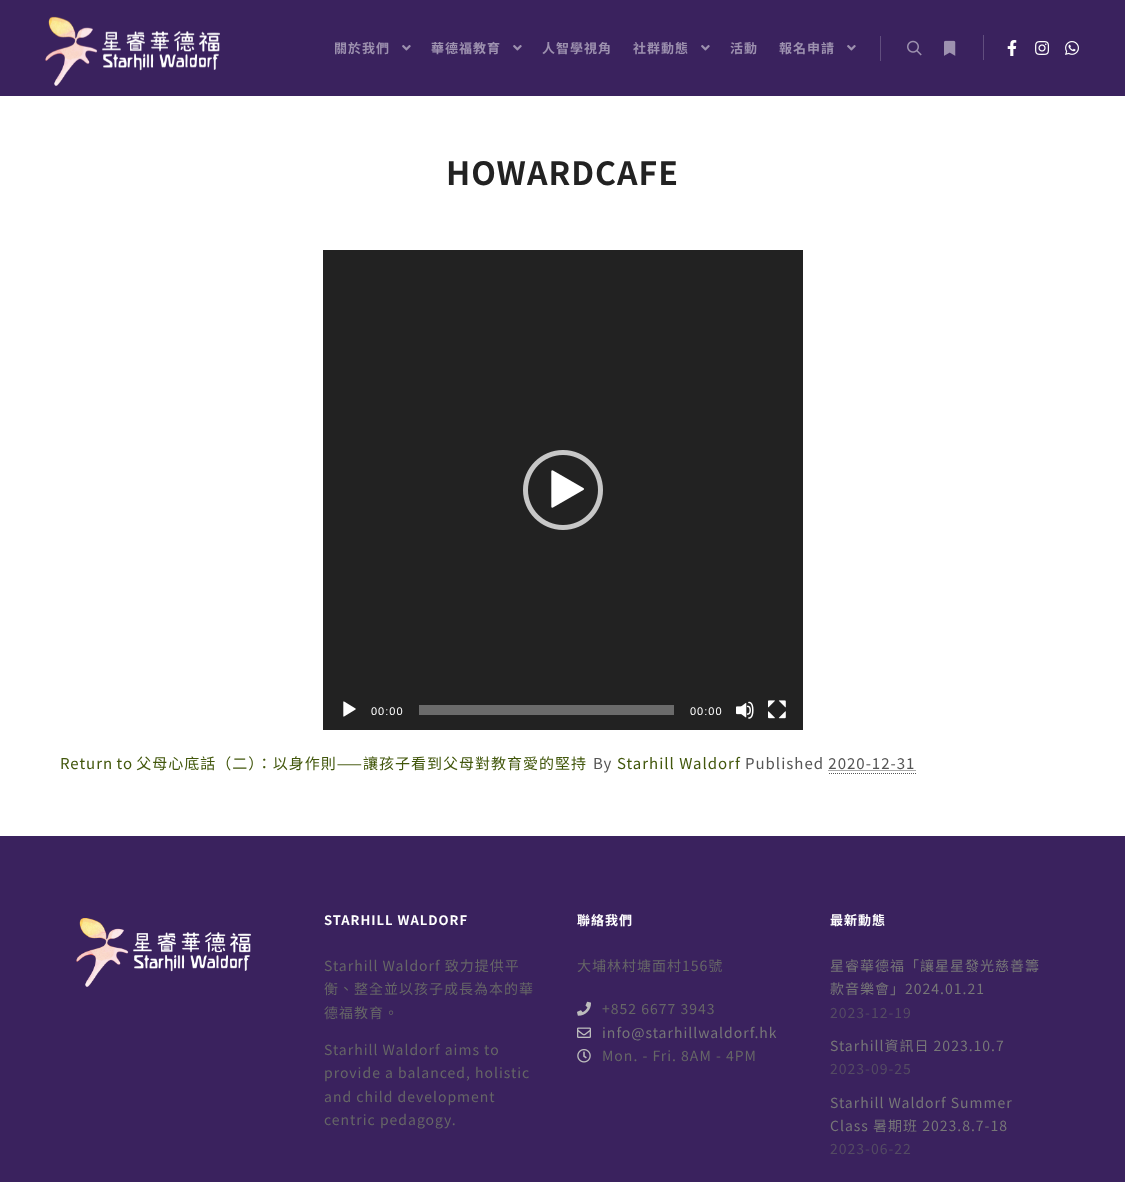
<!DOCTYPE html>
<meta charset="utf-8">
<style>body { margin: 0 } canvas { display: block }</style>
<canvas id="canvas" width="1125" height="1182"></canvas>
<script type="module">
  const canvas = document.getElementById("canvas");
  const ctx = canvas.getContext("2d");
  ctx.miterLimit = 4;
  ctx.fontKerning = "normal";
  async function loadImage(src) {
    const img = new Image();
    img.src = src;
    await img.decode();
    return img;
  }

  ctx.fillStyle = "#ffffff";
  ctx.fillRect(0, 0, 1125, 1182);
  ctx.fillStyle = "#3a225e";
  ctx.fillRect(0, 0, 1125, 96);
  ctx.drawImage(await loadImage("img1.png"), 45, 16, 175, 70);
  ctx.letterSpacing = "1px";
  ctx.font = "bold 13px Noto Sans HK";
  ctx.fillStyle = "#9d91af";
  ctx.fillText("關於我們", 334, 53);
  ctx.drawImage(await loadImage("img2.png"), 402, 45, 9, 6);
  ctx.fillText("華德福教育", 431, 53);
  ctx.drawImage(await loadImage("img2.png"), 513, 45, 9, 6);
  ctx.fillText("人智學視角", 542, 53);
  ctx.fillText("社群動態", 633, 53);
  ctx.drawImage(await loadImage("img2.png"), 701, 45, 9, 6);
  ctx.fillText("活動", 730, 53);
  ctx.fillText("報名申請", 779, 53);
  ctx.drawImage(await loadImage("img2.png"), 847, 45, 9, 6);
  ctx.fillStyle = "#614e7e";
  ctx.fillRect(880, 36, 1, 25);
  ctx.drawImage(await loadImage("img3.png"), 907, 40, 15, 16);
  ctx.drawImage(await loadImage("img4.png"), 944, 40, 12, 16);
  ctx.fillRect(983, 35, 1, 25);
  ctx.drawImage(await loadImage("img5.png"), 1007, 40, 10, 16);
  ctx.drawImage(await loadImage("img6.png"), 1035, 41, 15, 14);
  ctx.drawImage(await loadImage("img7.png"), 1065, 41, 14, 14);
  ctx.font = "bold 32px Noto Sans HK";
  ctx.fillStyle = "#222222";
  ctx.fillText("HOWARDCAFE", 446, 185);
  ctx.fillRect(323, 250, 480, 480);
  ctx.drawImage(await loadImage("img8.png"), 523, 450, 80, 80);
  ctx.drawImage(await loadImage("img9.png"), 343, 701, 13, 16);
  ctx.font = "11px Liberation Sans";
  ctx.fillStyle = "#ffffff";
  ctx.fillText("00:00", 371, 715);
  ctx.fillStyle = "#6b6b6b";
  ctx.fillRect(419, 705, 255, 10);
  ctx.fillStyle = "#ffffff";
  ctx.fillText("00:00", 690, 715);
  ctx.drawImage(await loadImage("img10.png"), 736, 701, 18, 18);
  ctx.drawImage(await loadImage("img11.png"), 768, 700, 18, 19);
  ctx.wordSpacing = "-1px";
  ctx.font = "15px Noto Sans HK";
  ctx.fillStyle = "#42570c";
  ctx.fillText("Return to 父母心底話（二）：以身作則——讓孩子看到父母對教育愛的堅持", 60, 769);
  ctx.wordSpacing = "0px";
  ctx.fillStyle = "#555555";
  ctx.fillText("By", 593, 769);
  ctx.fillStyle = "#42570c";
  ctx.fillText("Starhill Waldorf", 617, 769);
  ctx.fillStyle = "#555555";
  ctx.fillText("Published 2020-12-31", 745, 769);
  ctx.beginPath();
  ctx.moveTo(829, 773.5);
  ctx.lineTo(916, 773.5);
  ctx.strokeStyle = "#555555";
  ctx.setLineDash([1, 1]);
  ctx.stroke();
  ctx.beginPath();
  ctx.moveTo(828.5, 770.5);
  ctx.lineTo(915.5, 770.5);
  ctx.stroke();
  ctx.fillStyle = "#3a225e";
  ctx.fillRect(0, 836, 1125, 346);
  ctx.drawImage(await loadImage("img12.png"), 76, 918, 175, 69);
  ctx.font = "bold 13px Noto Sans HK";
  ctx.fillStyle = "#ffffff";
  ctx.fillText("STARHILL WALDORF", 324, 925);
  ctx.font = "14px Noto Sans HK";
  ctx.fillStyle = "#666666";
  ctx.fillText("Starhill Waldorf 致力提供平", 324, 971);
  ctx.fillText("衡、整全並以孩子成長為本的華", 324, 994);
  ctx.fillText("德福教育。", 324, 1018);
  ctx.fillText("Starhill Waldorf aims to", 324, 1055);
  ctx.fillText("provide a balanced, holistic", 324, 1078);
  ctx.fillText("and child development", 324, 1102);
  ctx.fillText("centric pedagogy.", 324, 1125);
  ctx.font = "bold 13px Noto Sans HK";
  ctx.fillStyle = "#ffffff";
  ctx.fillText("聯絡我們", 577, 925);
  ctx.font = "14px Noto Sans HK";
  ctx.fillStyle = "#666666";
  ctx.fillText("大埔林村塘面村156號", 577, 971);
  ctx.drawImage(await loadImage("img13.png"), 577, 1001, 14, 15);
  ctx.fillText("+852 6677 3943", 602, 1014);
  ctx.drawImage(await loadImage("img14.png"), 577, 1027, 14, 11);
  ctx.fillStyle = "#777777";
  ctx.fillText("info@starhillwaldorf.hk", 602, 1038);
  ctx.drawImage(await loadImage("img15.png"), 577, 1049, 14, 14);
  ctx.fillStyle = "#666666";
  ctx.fillText("Mon. - Fri. 8AM - 4PM", 602, 1061);
  ctx.font = "bold 13px Noto Sans HK";
  ctx.fillStyle = "#ffffff";
  ctx.fillText("最新動態", 830, 925);
  ctx.font = "14px Noto Sans HK";
  ctx.fillStyle = "#777777";
  ctx.fillText("星睿華德福「讓星星發光慈善籌", 830, 971);
  ctx.fillText("款音樂會」2024.01.21", 830, 994);
  ctx.fillStyle = "#544b63";
  ctx.fillText("2023-12-19", 830, 1018);
  ctx.fillStyle = "#777777";
  ctx.fillText("Starhill資訊日 2023.10.7", 830, 1051);
  ctx.fillStyle = "#544b63";
  ctx.fillText("2023-09-25", 830, 1074);
  ctx.fillStyle = "#777777";
  ctx.fillText("Starhill Waldorf Summer", 830, 1108);
  ctx.fillText("Class 暑期班 2023.8.7-18", 830, 1131);
  ctx.fillStyle = "#544b63";
  ctx.fillText("2023-06-22", 830, 1154);
</script>
